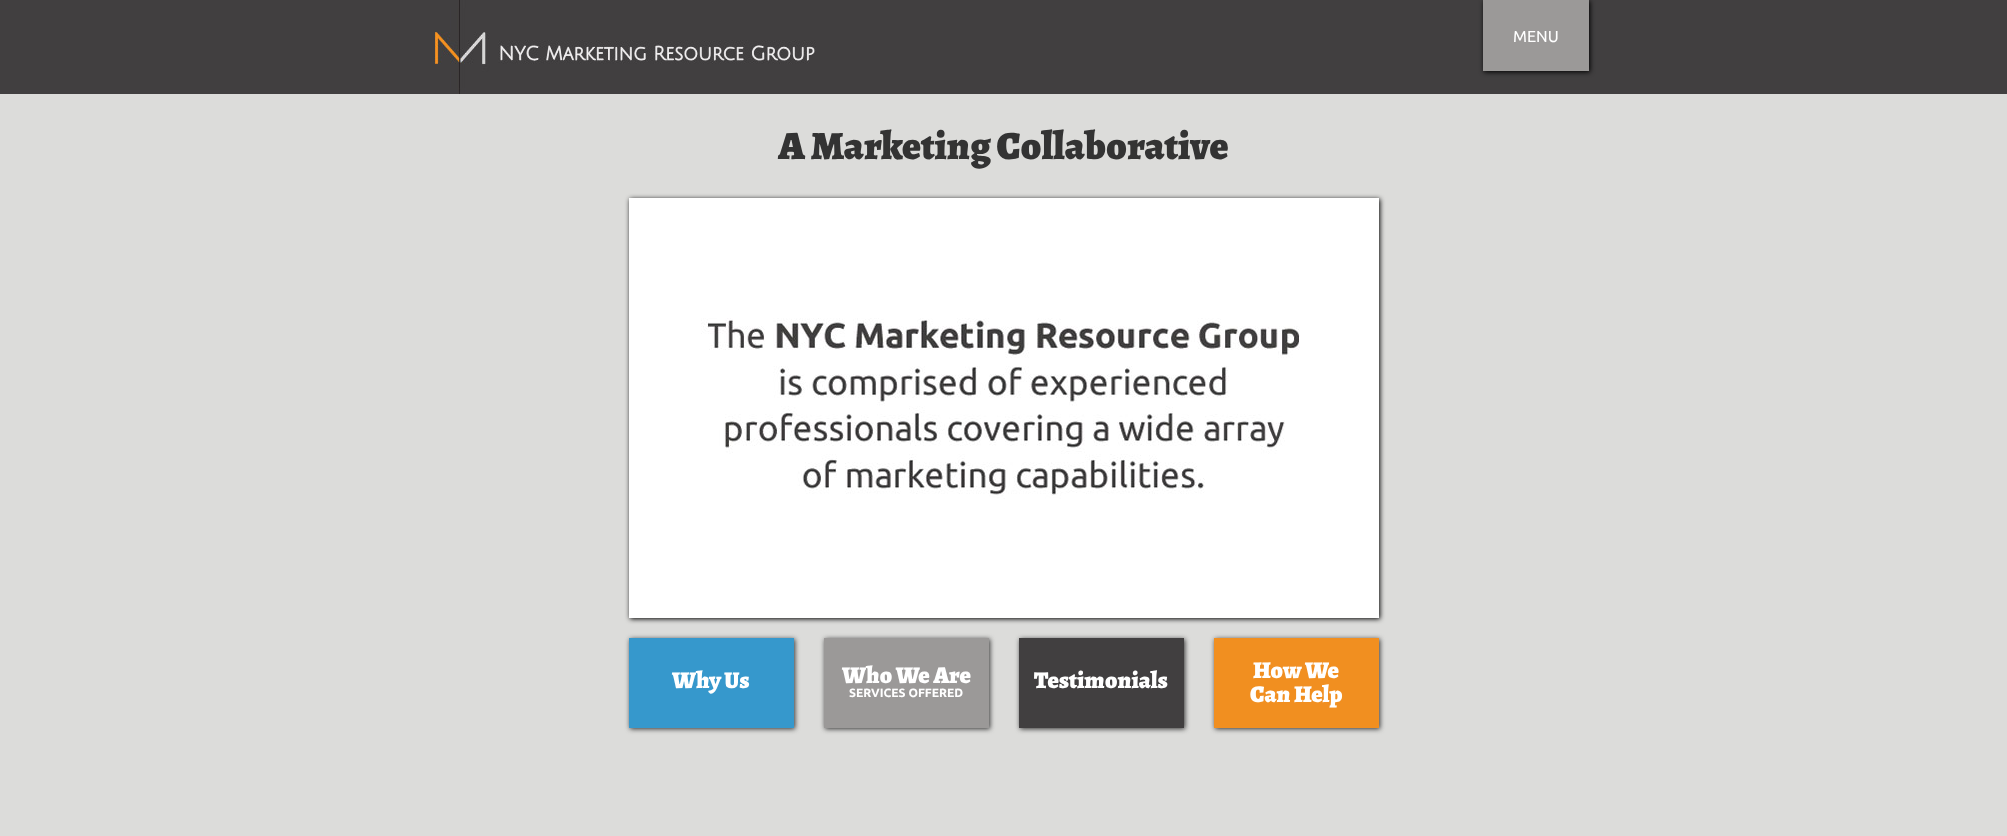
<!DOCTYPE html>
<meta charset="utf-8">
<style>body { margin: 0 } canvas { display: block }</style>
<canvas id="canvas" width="2007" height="836"></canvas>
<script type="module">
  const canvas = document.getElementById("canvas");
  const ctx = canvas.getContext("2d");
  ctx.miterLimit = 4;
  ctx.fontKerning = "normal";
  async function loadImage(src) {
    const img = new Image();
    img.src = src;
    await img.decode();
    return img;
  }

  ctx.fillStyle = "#dcdcda";
  ctx.fillRect(0, 0, 2007, 836);
  ctx.fillStyle = "#413f40";
  ctx.fillRect(0, 0, 2007, 94);
  ctx.drawImage(await loadImage("img1.png"), 434, 0, 382, 94);
  ctx.fillStyle = "#000000";
  ctx.filter = "blur(2.5px)";
  ctx.beginPath();
  ctx.rect(1484, 1, 106, 71);
  ctx.fill();
  ctx.filter = "none";
  ctx.fillStyle = "#9b9998";
  ctx.fillRect(1483, 0, 106, 71);
  ctx.font = "16px Ubuntu";
  ctx.fillStyle = "#ffffff";
  ctx.fillText("MENU", 1513, 42);
  ctx.font = "900 40px Alegreya";
  ctx.fillStyle = "#333333";
  ctx.fillText("A Marketing Collaborative", 778, 159);
  ctx.fillStyle = "#000000";
  ctx.filter = "blur(2.5px)";
  ctx.beginPath();
  ctx.rect(630, 199, 750, 420);
  ctx.fill();
  ctx.filter = "none";
  ctx.fillStyle = "#ffffff";
  ctx.fillRect(629, 198, 750, 420);
  ctx.drawImage(await loadImage("img2.png"), 701, 318, 599, 181);
  ctx.fillStyle = "#333333";
  ctx.filter = "blur(2.5px)";
  ctx.beginPath();
  ctx.rect(630, 639, 165, 90);
  ctx.fill();
  ctx.filter = "none";
  ctx.fillStyle = "#3698cc";
  ctx.fillRect(629, 638, 165, 90);
  ctx.font = "900 24px Alegreya";
  ctx.fillStyle = "#ffffff";
  ctx.fillText("Why Us", 672, 688);
  ctx.fillStyle = "#333333";
  ctx.filter = "blur(2.5px)";
  ctx.beginPath();
  ctx.rect(825, 639, 165, 90);
  ctx.fill();
  ctx.filter = "none";
  ctx.fillStyle = "#9b9998";
  ctx.fillRect(824, 638, 165, 90);
  ctx.fillStyle = "#ffffff";
  ctx.fillText("Who We Are", 842, 683);
  ctx.font = "bold 12px Ubuntu";
  ctx.fillText("SERVICES OFFERED", 849, 697);
  ctx.fillStyle = "#333333";
  ctx.filter = "blur(2.5px)";
  ctx.beginPath();
  ctx.rect(1020, 639, 165, 90);
  ctx.fill();
  ctx.filter = "none";
  ctx.fillStyle = "#413f40";
  ctx.fillRect(1019, 638, 165, 90);
  ctx.font = "900 24px Alegreya";
  ctx.fillStyle = "#ffffff";
  ctx.fillText("Testimonials", 1034, 688);
  ctx.fillStyle = "#333333";
  ctx.filter = "blur(2.5px)";
  ctx.beginPath();
  ctx.rect(1215, 639, 165, 90);
  ctx.fill();
  ctx.filter = "none";
  ctx.fillStyle = "#f18f20";
  ctx.fillRect(1214, 638, 165, 90);
  ctx.fillStyle = "#ffffff";
  ctx.fillText("How We", 1253, 678);
  ctx.fillText("Can Help", 1250, 702);
</script>
